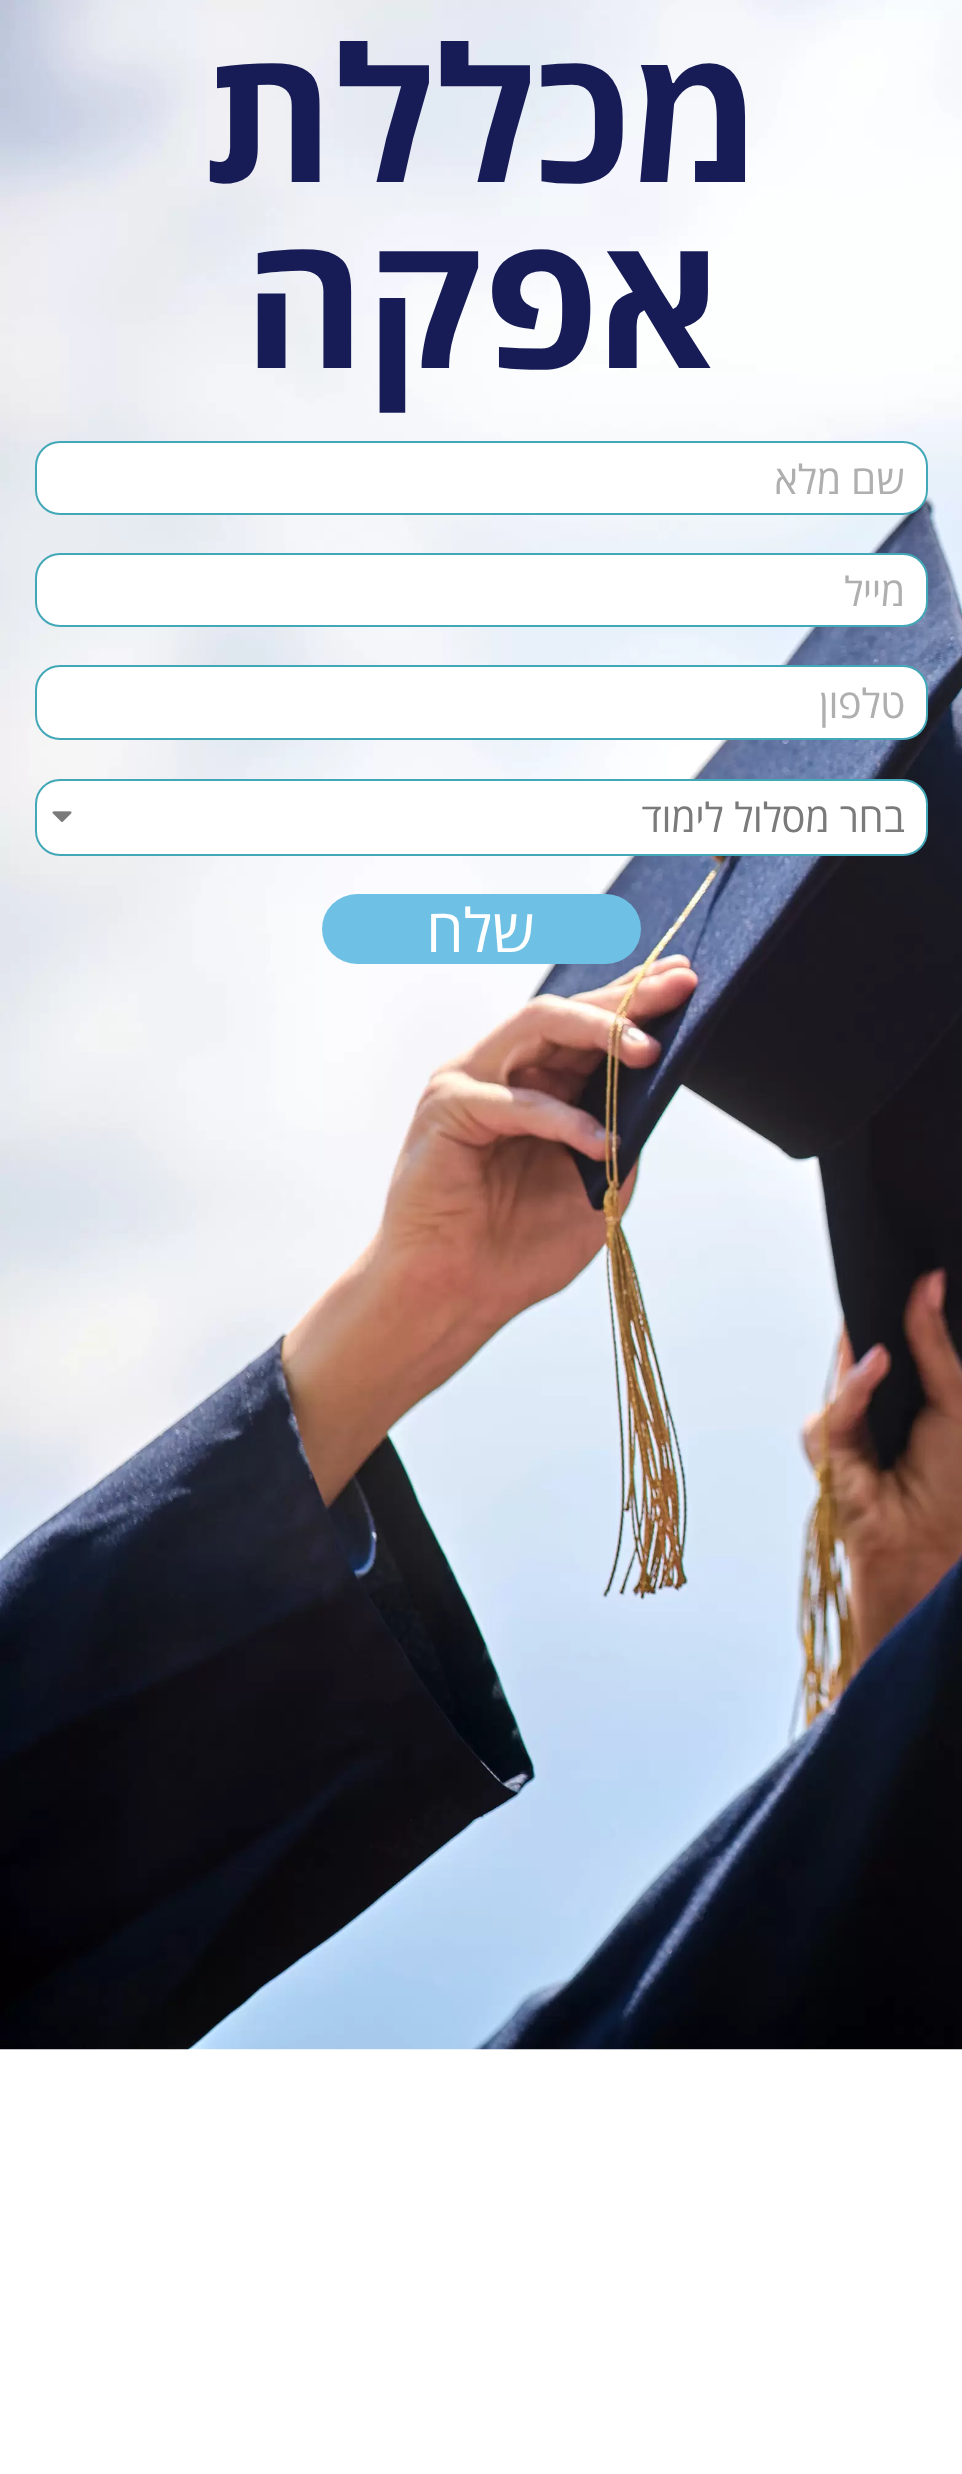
<!DOCTYPE html>
<meta charset="utf-8">
<style>body { margin: 0 } canvas { display: block }</style>
<canvas id="canvas" width="962" height="2474"></canvas>
<script type="module">
  const canvas = document.getElementById("canvas");
  const ctx = canvas.getContext("2d");
  ctx.miterLimit = 4;
  ctx.fontKerning = "normal";
  async function loadImage(src) {
    const img = new Image();
    img.src = src;
    await img.decode();
    return img;
  }

  ctx.fillStyle = "#ffffff";
  ctx.fillRect(0, 0, 962, 2474);
  ctx.drawImage(await loadImage("img1.png"), 0, 0, 962, 2050);
  ctx.direction = "rtl";
  ctx.font = "bold 185.5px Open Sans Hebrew";
  ctx.fillStyle = "#171c56";
  ctx.fillText("מכללת", 759, 182);
  ctx.fillText("אפקה", 719, 368);
  ctx.fillStyle = "#ffffff";
  ctx.beginPath();
  ctx.roundRect(36, 442, 891, 72, 24);
  ctx.fill();
  ctx.strokeStyle = "#42a7b7";
  ctx.lineWidth = 2;
  ctx.stroke();
  ctx.font = "40.25px Open Sans Hebrew";
  ctx.fillStyle = "#afafaf";
  ctx.fillText("שם מלא", 905, 494);
  ctx.fillStyle = "#ffffff";
  ctx.beginPath();
  ctx.roundRect(36, 554, 891, 72, 24);
  ctx.fill();
  ctx.stroke();
  ctx.fillStyle = "#afafaf";
  ctx.fillText("מייל", 905, 606);
  ctx.fillStyle = "#ffffff";
  ctx.beginPath();
  ctx.roundRect(36, 666, 891, 73, 24);
  ctx.fill();
  ctx.stroke();
  ctx.fillStyle = "#afafaf";
  ctx.fillText("טלפון", 905, 718);
  ctx.fillStyle = "#ffffff";
  ctx.beginPath();
  ctx.roundRect(36, 780, 891, 75, 24);
  ctx.fill();
  ctx.stroke();
  ctx.fillStyle = "#7a7a7a";
  ctx.fillText("בחר מסלול לימוד", 905, 832);
  ctx.drawImage(await loadImage("img2.png"), 52, 811, 20, 11);
  ctx.fillStyle = "#6ec1e4";
  ctx.beginPath();
  ctx.roundRect(322, 894, 319, 70, 35);
  ctx.fill();
  ctx.font = "60px Open Sans Hebrew";
  ctx.fillStyle = "#ffffff";
  ctx.fillText("שלח", 535, 952);
</script>
